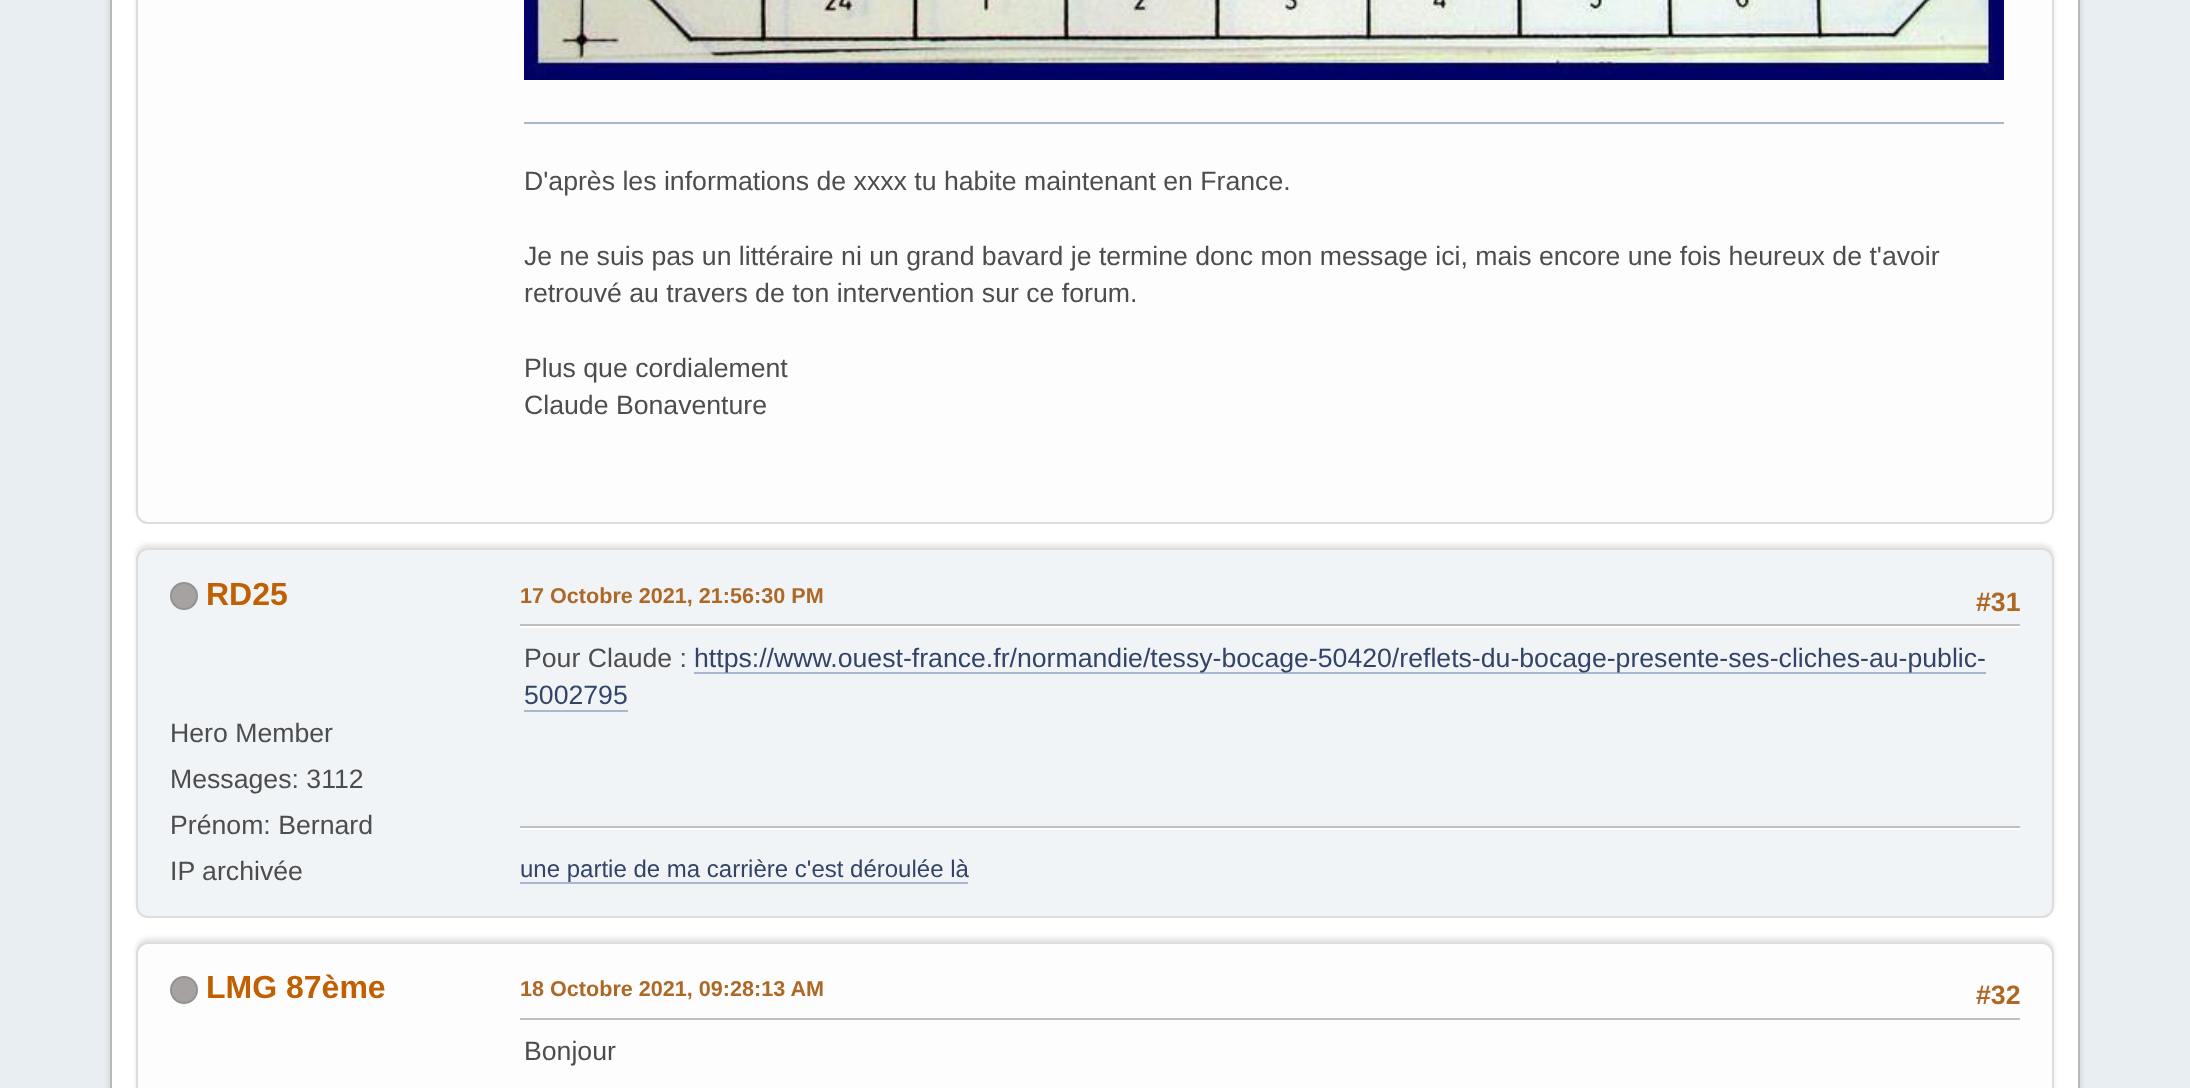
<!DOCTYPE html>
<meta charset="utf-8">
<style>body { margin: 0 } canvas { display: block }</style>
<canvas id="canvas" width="2190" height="1088"></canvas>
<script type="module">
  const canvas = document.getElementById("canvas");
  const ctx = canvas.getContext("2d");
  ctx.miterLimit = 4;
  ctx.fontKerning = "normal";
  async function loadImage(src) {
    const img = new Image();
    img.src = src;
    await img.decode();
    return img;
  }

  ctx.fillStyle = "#e9eef2";
  ctx.fillRect(0, 0, 2190, 1088);
  ctx.fillStyle = "rgba(0, 0, 0, 0.14)";
  ctx.filter = "blur(3px)";
  ctx.beginPath();
  ctx.roundRect(110, -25, 1970, 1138, 16);
  ctx.fill();
  ctx.filter = "none";
  ctx.fillStyle = "#ffffff";
  ctx.beginPath();
  ctx.rect(111, -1, 1968, 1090);
  ctx.fill();
  ctx.strokeStyle = "#b8b8b8";
  ctx.lineWidth = 2;
  ctx.stroke();
  ctx.fillStyle = "rgba(0, 0, 0, 0.1)";
  ctx.filter = "blur(2px)";
  ctx.beginPath();
  ctx.roundRect(136, -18, 1918, 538, 12);
  ctx.fill();
  ctx.filter = "none";
  ctx.fillStyle = "#fdfdfd";
  ctx.beginPath();
  ctx.roundRect(137, -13, 1916, 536, 11);
  ctx.fill();
  ctx.strokeStyle = "#dddddd";
  ctx.stroke();
  ctx.drawImage(await loadImage("img1.png"), 524, 0, 1480, 80);
  ctx.fillStyle = "#a8b6cf";
  ctx.fillRect(524, 122, 1480, 2);
  ctx.font = "26.67px Liberation Sans";
  ctx.fillStyle = "#4d4d4d";
  ctx.fillText("D'après les informations de xxxx tu habite maintenant en France.", 524, 190);
  ctx.fillText("Je ne suis pas un littéraire ni un grand bavard je termine donc mon message ici, mais encore une fois heureux de t'avoir", 524, 265);
  ctx.fillText("retrouvé au travers de ton intervention sur ce forum.", 524, 302);
  ctx.fillText("Plus que cordialement", 524, 377);
  ctx.fillText("Claude Bonaventure", 524, 414);
  ctx.fillStyle = "rgba(0, 0, 0, 0.1)";
  ctx.filter = "blur(2px)";
  ctx.beginPath();
  ctx.roundRect(136, 544, 1918, 370, 12);
  ctx.fill();
  ctx.filter = "none";
  ctx.fillStyle = "#f0f4f7";
  ctx.beginPath();
  ctx.roundRect(137, 549, 1916, 368, 11);
  ctx.fill();
  ctx.stroke();
  ctx.fillStyle = "#a7a2a2";
  ctx.beginPath();
  ctx.arc(184, 596, 13, 0, Math.PI * 2);
  ctx.fill();
  ctx.strokeStyle = "#969292";
  ctx.stroke();
  ctx.font = "bold 32px Liberation Sans";
  ctx.fillStyle = "#c06002";
  ctx.fillText("RD25", 206, 605);
  ctx.font = "26.67px Liberation Sans";
  ctx.fillStyle = "#4d4d4d";
  ctx.fillText("Hero Member", 170, 742);
  ctx.fillText("Messages: 3112", 170, 788);
  ctx.fillText("Prénom: Bernard", 170, 834);
  ctx.fillText("IP archivée", 170, 880);
  ctx.font = "bold 21.6px Liberation Sans";
  ctx.fillStyle = "#ad6825";
  ctx.fillText("17 Octobre 2021, 21:56:30 PM", 520, 603);
  ctx.font = "bold 26.67px Liberation Sans";
  ctx.fillText("#31", 1976, 611);
  ctx.fillStyle = "#ffffff";
  ctx.fillRect(520, 626, 1500, 2);
  ctx.fillStyle = "#bfbfbf";
  ctx.fillRect(520, 624, 1500, 2);
  ctx.font = "26.67px Liberation Sans";
  ctx.fillStyle = "#4d4d4d";
  ctx.fillText("Pour Claude :", 524, 667);
  ctx.fillStyle = "#a8b6cf";
  ctx.fillRect(694, 672, 1292, 2);
  ctx.fillStyle = "#334466";
  ctx.fillText("https://www.ouest-france.fr/normandie/tessy-bocage-50420/reflets-du-bocage-presente-ses-cliches-au-public-", 694, 667);
  ctx.fillText("5002795", 524, 704);
  ctx.fillStyle = "#a8b6cf";
  ctx.fillRect(524, 710, 104, 2);
  ctx.fillStyle = "#ffffff";
  ctx.fillRect(520, 828, 1500, 2);
  ctx.fillStyle = "#bfbfbf";
  ctx.fillRect(520, 826, 1500, 2);
  ctx.font = "24px Liberation Sans";
  ctx.fillStyle = "#334466";
  ctx.fillText("une partie de ma carrière c'est déroulée là", 520, 877);
  ctx.fillStyle = "#a8b6cf";
  ctx.fillRect(520, 882, 448, 2);
  ctx.fillStyle = "rgba(0, 0, 0, 0.1)";
  ctx.filter = "blur(2px)";
  ctx.beginPath();
  ctx.roundRect(136, 938, 1918, 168, 12);
  ctx.fill();
  ctx.filter = "none";
  ctx.fillStyle = "#fdfdfd";
  ctx.beginPath();
  ctx.roundRect(137, 943, 1916, 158, 11);
  ctx.fill();
  ctx.strokeStyle = "#dddddd";
  ctx.stroke();
  ctx.fillStyle = "#a7a2a2";
  ctx.beginPath();
  ctx.arc(184, 990, 13, 0, Math.PI * 2);
  ctx.fill();
  ctx.strokeStyle = "#969292";
  ctx.stroke();
  ctx.font = "bold 32px Liberation Sans";
  ctx.fillStyle = "#c06002";
  ctx.fillText("LMG 87ème", 206, 998);
  ctx.font = "bold 21.6px Liberation Sans";
  ctx.fillStyle = "#ad6825";
  ctx.fillText("18 Octobre 2021, 09:28:13 AM", 520, 996);
  ctx.font = "bold 26.67px Liberation Sans";
  ctx.fillText("#32", 1976, 1004);
  ctx.fillStyle = "#bfbfbf";
  ctx.fillRect(520, 1018, 1500, 2);
  ctx.font = "26.67px Liberation Sans";
  ctx.fillStyle = "#4d4d4d";
  ctx.fillText("Bonjour", 524, 1060);
</script>
